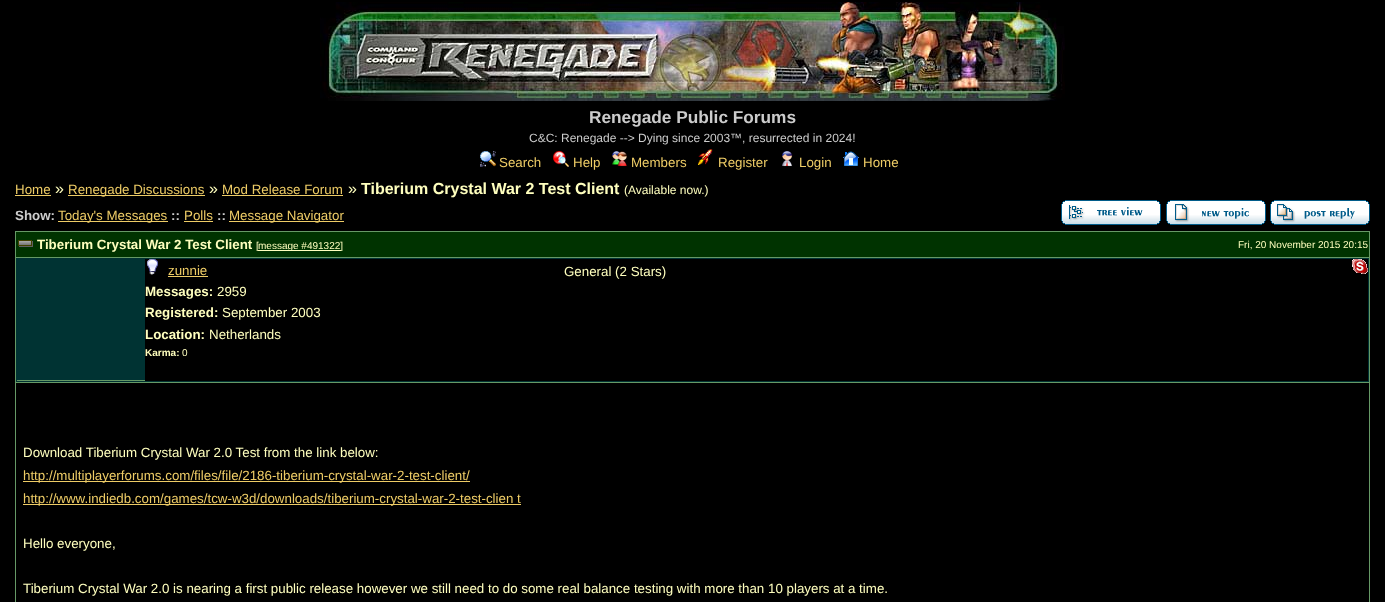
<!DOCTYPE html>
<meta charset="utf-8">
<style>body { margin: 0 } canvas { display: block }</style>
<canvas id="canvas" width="1385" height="602"></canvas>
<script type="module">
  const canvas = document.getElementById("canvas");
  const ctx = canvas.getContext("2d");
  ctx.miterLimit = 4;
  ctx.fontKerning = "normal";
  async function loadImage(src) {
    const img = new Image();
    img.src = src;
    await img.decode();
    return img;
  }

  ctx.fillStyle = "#000000";
  ctx.fillRect(0, 0, 1385, 602);
  ctx.drawImage(await loadImage("img1.png"), 320, 2, 745, 99);
  ctx.font = "bold 17.25px Liberation Sans";
  ctx.fillStyle = "#cccccc";
  ctx.fillText("Renegade Public Forums", 589, 123);
  ctx.font = "12px Liberation Sans";
  ctx.fillText("C&C: Renegade --> Dying since 2003™, resurrected in 2024!", 529, 142);
  ctx.drawImage(await loadImage("img2.png"), 480, 151, 16, 16);
  ctx.font = "13.33px Liberation Sans";
  ctx.fillStyle = "#eecc66";
  ctx.fillText("Search", 499, 167);
  ctx.drawImage(await loadImage("img3.png"), 553, 151, 16, 16);
  ctx.fillText("Help", 573, 167);
  ctx.drawImage(await loadImage("img4.png"), 612, 151, 15, 16);
  ctx.fillText("Members", 631, 167);
  ctx.drawImage(await loadImage("img5.png"), 698, 149, 15, 16);
  ctx.fillText("Register", 718, 167);
  ctx.drawImage(await loadImage("img6.png"), 782, 151, 11, 16);
  ctx.fillText("Login", 799, 167);
  ctx.drawImage(await loadImage("img7.png"), 843, 151, 16, 15);
  ctx.fillText("Home", 863, 167);
  ctx.fillText("Home", 15, 194);
  ctx.fillRect(15, 195, 36, 1);
  ctx.font = "16px Liberation Sans";
  ctx.fillStyle = "#ffffbe";
  ctx.fillText("»", 55, 194);
  ctx.fillStyle = "#eecc66";
  ctx.fillRect(68, 195, 137, 1);
  ctx.font = "13.33px Liberation Sans";
  ctx.fillText("Renegade Discussions", 68, 194);
  ctx.font = "16px Liberation Sans";
  ctx.fillStyle = "#ffffbe";
  ctx.fillText("»", 209, 194);
  ctx.font = "13.33px Liberation Sans";
  ctx.fillStyle = "#eecc66";
  ctx.fillText("Mod Release Forum", 222, 194);
  ctx.fillRect(222, 195, 121, 1);
  ctx.font = "16px Liberation Sans";
  ctx.fillStyle = "#ffffbe";
  ctx.fillText("»", 348, 194);
  ctx.font = "bold 16px Liberation Sans";
  ctx.fillText("Tiberium Crystal War 2 Test Client", 361, 194);
  ctx.font = "12px Liberation Sans";
  ctx.fillText("(Available now.)", 624, 194);
  ctx.font = "bold 13.33px Liberation Sans";
  ctx.fillStyle = "#cccccc";
  ctx.fillText("Show:", 15, 220);
  ctx.fillStyle = "#eecc66";
  ctx.fillRect(58, 221, 110, 1);
  ctx.font = "13.33px Liberation Sans";
  ctx.fillText("Today's Messages", 58, 220);
  ctx.font = "bold 13.33px Liberation Sans";
  ctx.fillStyle = "#cccccc";
  ctx.fillText("::", 171, 220);
  ctx.font = "13.33px Liberation Sans";
  ctx.fillStyle = "#eecc66";
  ctx.fillText("Polls", 184, 220);
  ctx.fillRect(184, 221, 29, 1);
  ctx.font = "bold 13.33px Liberation Sans";
  ctx.fillStyle = "#cccccc";
  ctx.fillText("::", 217, 220);
  ctx.fillStyle = "#eecc66";
  ctx.fillRect(229, 221, 115, 1);
  ctx.font = "13.33px Liberation Sans";
  ctx.fillText("Message Navigator", 229, 220);
  ctx.drawImage(await loadImage("img8.png"), 1061, 200, 100, 25);
  ctx.drawImage(await loadImage("img9.png"), 1166, 200, 100, 25);
  ctx.drawImage(await loadImage("img10.png"), 1270, 200, 100, 25);
  ctx.fillStyle = "#669966";
  ctx.fillRect(15, 231, 1355, 371);
  ctx.fillStyle = "#003300";
  ctx.fillRect(16, 232, 1353, 25);
  ctx.drawImage(await loadImage("img11.png"), 18, 240, 15, 7);
  ctx.font = "bold 13.33px Liberation Sans";
  ctx.fillStyle = "#ffffbe";
  ctx.fillText("Tiberium Crystal War 2 Test Client", 37, 249);
  ctx.font = "10px Liberation Sans";
  ctx.fillText("[", 256, 249);
  ctx.fillRect(258, 250, 83, 1);
  ctx.fillText("message #491322]", 258, 249);
  ctx.fillText("Fri, 20 November 2015 20:15", 1238, 248);
  ctx.fillStyle = "#003333";
  ctx.fillRect(16, 258, 1353, 124);
  ctx.fillStyle = "#669966";
  ctx.fillRect(17, 380, 128, 1);
  ctx.fillStyle = "#000000";
  ctx.fillRect(145, 259, 1223, 122);
  ctx.drawImage(await loadImage("img12.png"), 147, 259, 11, 16);
  ctx.font = "13.33px Liberation Sans";
  ctx.fillStyle = "#eecc66";
  ctx.fillText("zunnie", 168, 275);
  ctx.fillRect(168, 276, 40, 1);
  ctx.font = "bold 13.33px Liberation Sans";
  ctx.fillStyle = "#ffffbe";
  ctx.fillText("Messages:", 145, 296);
  ctx.font = "13.33px Liberation Sans";
  ctx.fillText("2959", 217, 296);
  ctx.font = "bold 13.33px Liberation Sans";
  ctx.fillText("Registered:", 145, 317);
  ctx.font = "13.33px Liberation Sans";
  ctx.fillText("September 2003", 222, 317);
  ctx.font = "bold 13.33px Liberation Sans";
  ctx.fillText("Location:", 145, 339);
  ctx.font = "13.33px Liberation Sans";
  ctx.fillText("Netherlands", 209, 339);
  ctx.font = "bold 10px Liberation Sans";
  ctx.fillText("Karma:", 145, 356);
  ctx.font = "10px Liberation Sans";
  ctx.fillText("0", 182, 356);
  ctx.font = "13.33px Liberation Sans";
  ctx.fillText("General (2 Stars)", 564, 276);
  ctx.drawImage(await loadImage("img13.png"), 1352, 259, 16, 15);
  ctx.fillStyle = "#000000";
  ctx.fillRect(16, 383, 1353, 219);
  ctx.fillStyle = "#ffffbe";
  ctx.fillText("Download Tiberium Crystal War 2.0 Test from the link below:", 23, 457);
  ctx.fillStyle = "#eecc66";
  ctx.fillRect(23, 481, 447, 1);
  ctx.fillText("http://multiplayerforums.com/files/file/2186-tiberium-crystal-war-2-test-client/", 23, 480);
  ctx.fillRect(23, 504, 498, 1);
  ctx.fillText("http://www.indiedb.com/games/tcw-w3d/downloads/tiberium-crystal-war-2-test-clien t", 23, 503);
  ctx.fillStyle = "#ffffbe";
  ctx.fillText("Hello everyone,", 23, 548);
  ctx.fillText("Tiberium Crystal War 2.0 is nearing a first public release however we still need to do some real balance testing with more than 10 players at a time.", 23, 593);
</script>
